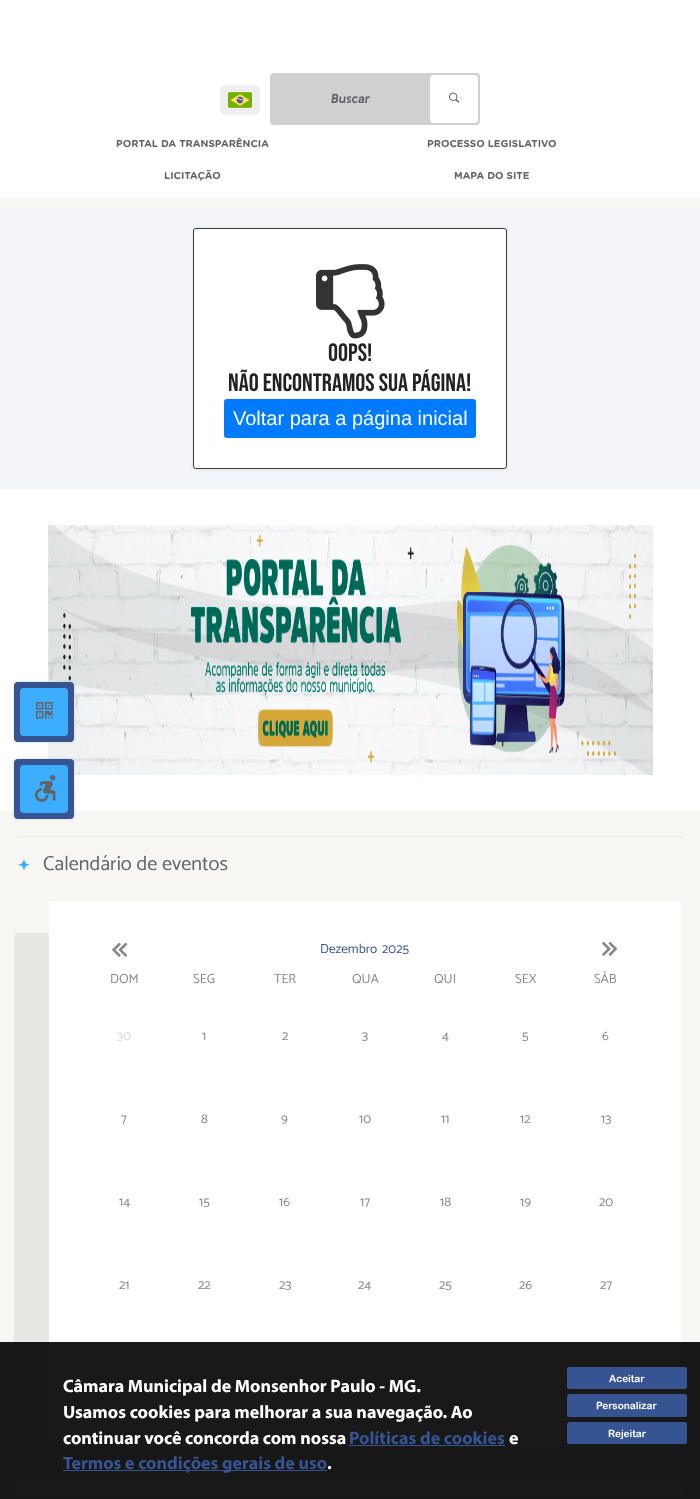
<!DOCTYPE html>
<meta charset="utf-8">
<style>body { margin: 0 } canvas { display: block }</style>
<canvas id="canvas" width="700" height="1499"></canvas>
<script type="module">
  const canvas = document.getElementById("canvas");
  const ctx = canvas.getContext("2d");
  ctx.miterLimit = 4;
  ctx.fontKerning = "normal";
  async function loadImage(src) {
    const img = new Image();
    img.src = src;
    await img.decode();
    return img;
  }

  ctx.fillStyle = "#f7f6f2";
  ctx.fillRect(0, 0, 700, 1499);
  ctx.fillStyle = "#ffffff";
  ctx.fillRect(0, 0, 700, 198);
  ctx.fillStyle = "#efefef";
  ctx.beginPath();
  ctx.roundRect(220, 85, 40, 30, 6);
  ctx.fill();
  ctx.drawImage(await loadImage("img1.png"), 228, 92, 24, 16);
  ctx.fillStyle = "#d0d0d0";
  ctx.beginPath();
  ctx.roundRect(270, 73, 210, 52, 4);
  ctx.fill();
  ctx.font = "italic bold 13.25px Kulim Park";
  ctx.fillStyle = "#606466";
  ctx.fillText("Buscar", 331, 103);
  ctx.fillStyle = "#ffffff";
  ctx.beginPath();
  ctx.roundRect(430, 75, 48, 48, 4);
  ctx.fill();
  ctx.drawImage(await loadImage("img2.png"), 449, 92, 11, 11);
  ctx.font = "bold 10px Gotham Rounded";
  ctx.fillStyle = "#606466";
  ctx.fillText("PORTAL DA TRANSPARÊNCIA", 116, 147);
  ctx.fillText("PROCESSO LEGISLATIVO", 427, 147);
  ctx.fillText("LICITAÇÃO", 164, 179);
  ctx.fillText("MAPA DO SITE", 454, 179);
  ctx.fillStyle = "#f4f5fa";
  ctx.fillRect(0, 208, 700, 281);
  ctx.fillStyle = "rgba(0, 0, 0, 0.1)";
  ctx.filter = "blur(1.5px)";
  ctx.beginPath();
  ctx.roundRect(193, 228, 314, 241, 3);
  ctx.fill();
  ctx.filter = "none";
  ctx.fillStyle = "#ffffff";
  ctx.beginPath();
  ctx.roundRect(193.5, 228.5, 313, 240, 2.5);
  ctx.fill();
  ctx.strokeStyle = "#3e3e3e";
  ctx.stroke();
  ctx.drawImage(await loadImage("img3.png"), 316, 264, 69, 75);
  ctx.font = "25px Bebas Neue";
  ctx.fillStyle = "#222222";
  ctx.fillText("Oops!", 328, 361);
  ctx.fillText("Não encontramos sua página!", 228, 391);
  ctx.fillStyle = "#007bff";
  ctx.beginPath();
  ctx.roundRect(224.5, 399.5, 251, 38, 2);
  ctx.fill();
  ctx.strokeStyle = "#007bff";
  ctx.stroke();
  ctx.font = "20px Liberation Sans";
  ctx.fillStyle = "#ffffff";
  ctx.fillText("Voltar para a página inicial", 233, 425);
  ctx.fillRect(0, 489, 700, 322);
  ctx.drawImage(await loadImage("img4.png"), 48, 525, 605, 250);
  ctx.fillStyle = "#e8e7e3";
  ctx.fillRect(18, 836, 665, 1);
  ctx.drawImage(await loadImage("img5.png"), 18, 859, 12, 12);
  ctx.font = "20.25px Catamaran";
  ctx.fillStyle = "#606466";
  ctx.fillText("Calendário de eventos", 43, 870);
  ctx.fillStyle = "#e8e7e3";
  ctx.beginPath();
  ctx.moveTo(18, 933);
  ctx.bezierCurveTo(16, 933, 14, 935, 14, 937);
  ctx.lineTo(14, 1475);
  ctx.bezierCurveTo(14, 1477, 16, 1479, 18, 1479);
  ctx.lineTo(642, 1479);
  ctx.bezierCurveTo(644, 1479, 646, 1477, 646, 1475);
  ctx.lineTo(646, 1447);
  ctx.lineTo(53, 1447);
  ctx.bezierCurveTo(51, 1447, 49, 1445, 49, 1443);
  ctx.lineTo(49, 933);
  ctx.closePath();
  ctx.fill();
  ctx.fillStyle = "#ffffff";
  ctx.beginPath();
  ctx.roundRect(49, 901, 632, 546, 4);
  ctx.fill();
  ctx.drawImage(await loadImage("img6.png"), 112, 942, 16, 15);
  ctx.font = "13.25px Catamaran";
  ctx.fillStyle = "#365491";
  ctx.fillText("Dezembro", 320, 953);
  ctx.fillText("2025", 382, 953);
  ctx.drawImage(await loadImage("img7.png"), 602, 941, 16, 15);
  ctx.fillStyle = "#84868c";
  ctx.fillText("DOM", 110, 983);
  ctx.fillText("SEG", 193, 983);
  ctx.fillText("TER", 274, 983);
  ctx.fillText("QUA", 352, 983);
  ctx.fillText("QUI", 434, 983);
  ctx.fillText("SEX", 515, 983);
  ctx.fillText("SÁB", 594, 983);
  ctx.fillStyle = "#d5d6d8";
  ctx.fillText("30", 117, 1040);
  ctx.fillStyle = "#84868c";
  ctx.fillText("1", 202, 1040);
  ctx.fillText("2", 282, 1040);
  ctx.fillText("3", 362, 1040);
  ctx.fillText("4", 442, 1040);
  ctx.fillText("5", 522, 1040);
  ctx.fillText("6", 602, 1040);
  ctx.fillText("7", 121, 1123);
  ctx.fillText("8", 201, 1123);
  ctx.fillText("9", 281, 1123);
  ctx.fillText("10", 359, 1123);
  ctx.fillText("11", 441, 1123);
  ctx.fillText("12", 520, 1123);
  ctx.fillText("13", 601, 1123);
  ctx.fillText("14", 119, 1206);
  ctx.fillText("15", 199, 1206);
  ctx.fillText("16", 279, 1206);
  ctx.fillText("17", 360, 1206);
  ctx.fillText("18", 440, 1206);
  ctx.fillText("19", 520, 1206);
  ctx.fillText("20", 599, 1206);
  ctx.fillText("21", 119, 1289);
  ctx.fillText("22", 198, 1289);
  ctx.fillText("23", 279, 1289);
  ctx.fillText("24", 358, 1289);
  ctx.fillText("25", 439, 1289);
  ctx.fillText("26", 519, 1289);
  ctx.fillText("27", 600, 1289);
  ctx.fillStyle = "#ffffff";
  ctx.beginPath();
  ctx.roundRect(18, 1482, 665, 16, 4);
  ctx.fill();
  ctx.fillStyle = "rgba(0, 0, 0, 0.9)";
  ctx.fillRect(0, 1342, 700, 157);
  ctx.font = "bold 18px Myriad";
  ctx.fillStyle = "#ffffff";
  ctx.fillText("Câmara Municipal de Monsenhor Paulo - MG.", 63, 1392);
  ctx.fillText("Usamos cookies para melhorar a sua navegação. Ao", 63, 1418);
  ctx.fillText("continuar você concorda com nossa", 63, 1444);
  ctx.fillStyle = "#365491";
  ctx.fillText("Políticas de cookies", 349, 1444);
  ctx.fillRect(349, 1445, 156, 1);
  ctx.fillStyle = "#ffffff";
  ctx.fillText("e", 509, 1444);
  ctx.fillStyle = "#365491";
  ctx.fillRect(63, 1470, 264, 1);
  ctx.fillText("Termos e condições gerais de uso", 63, 1469);
  ctx.fillStyle = "#ffffff";
  ctx.fillText(".", 327, 1469);
  ctx.fillStyle = "#365491";
  ctx.beginPath();
  ctx.roundRect(567, 1367, 120, 22, 2.5);
  ctx.fill();
  ctx.font = "bold 10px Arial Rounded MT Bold";
  ctx.fillStyle = "#ffffff";
  ctx.fillText("Aceitar", 609, 1382);
  ctx.fillStyle = "#365491";
  ctx.beginPath();
  ctx.roundRect(567, 1394, 120, 23, 2.5);
  ctx.fill();
  ctx.fillStyle = "#ffffff";
  ctx.fillText("Personalizar", 596, 1409);
  ctx.fillStyle = "#365491";
  ctx.beginPath();
  ctx.roundRect(567, 1422, 120, 22, 2.5);
  ctx.fill();
  ctx.fillStyle = "#ffffff";
  ctx.fillText("Rejeitar", 608, 1437);
  ctx.fillStyle = "#cbd0d6";
  ctx.filter = "blur(1.5px)";
  ctx.beginPath();
  ctx.roundRect(14, 682, 60, 60, 4);
  ctx.fill();
  ctx.filter = "none";
  ctx.fillStyle = "#365491";
  ctx.beginPath();
  ctx.roundRect(14, 682, 60, 60, 4);
  ctx.fill();
  ctx.fillStyle = "#3dadff";
  ctx.beginPath();
  ctx.roundRect(20, 688, 48, 48, 4);
  ctx.fill();
  ctx.drawImage(await loadImage("img8.png"), 36, 702, 17, 17);
  ctx.fillStyle = "#cbd0d6";
  ctx.filter = "blur(1.5px)";
  ctx.beginPath();
  ctx.roundRect(14, 759, 60, 60, 4);
  ctx.fill();
  ctx.filter = "none";
  ctx.fillStyle = "#365491";
  ctx.beginPath();
  ctx.roundRect(14, 759, 60, 60, 4);
  ctx.fill();
  ctx.fillStyle = "#3dadff";
  ctx.beginPath();
  ctx.roundRect(20, 765, 48, 48, 4);
  ctx.fill();
  ctx.drawImage(await loadImage("img9.png"), 34, 775, 22, 27);
</script>
